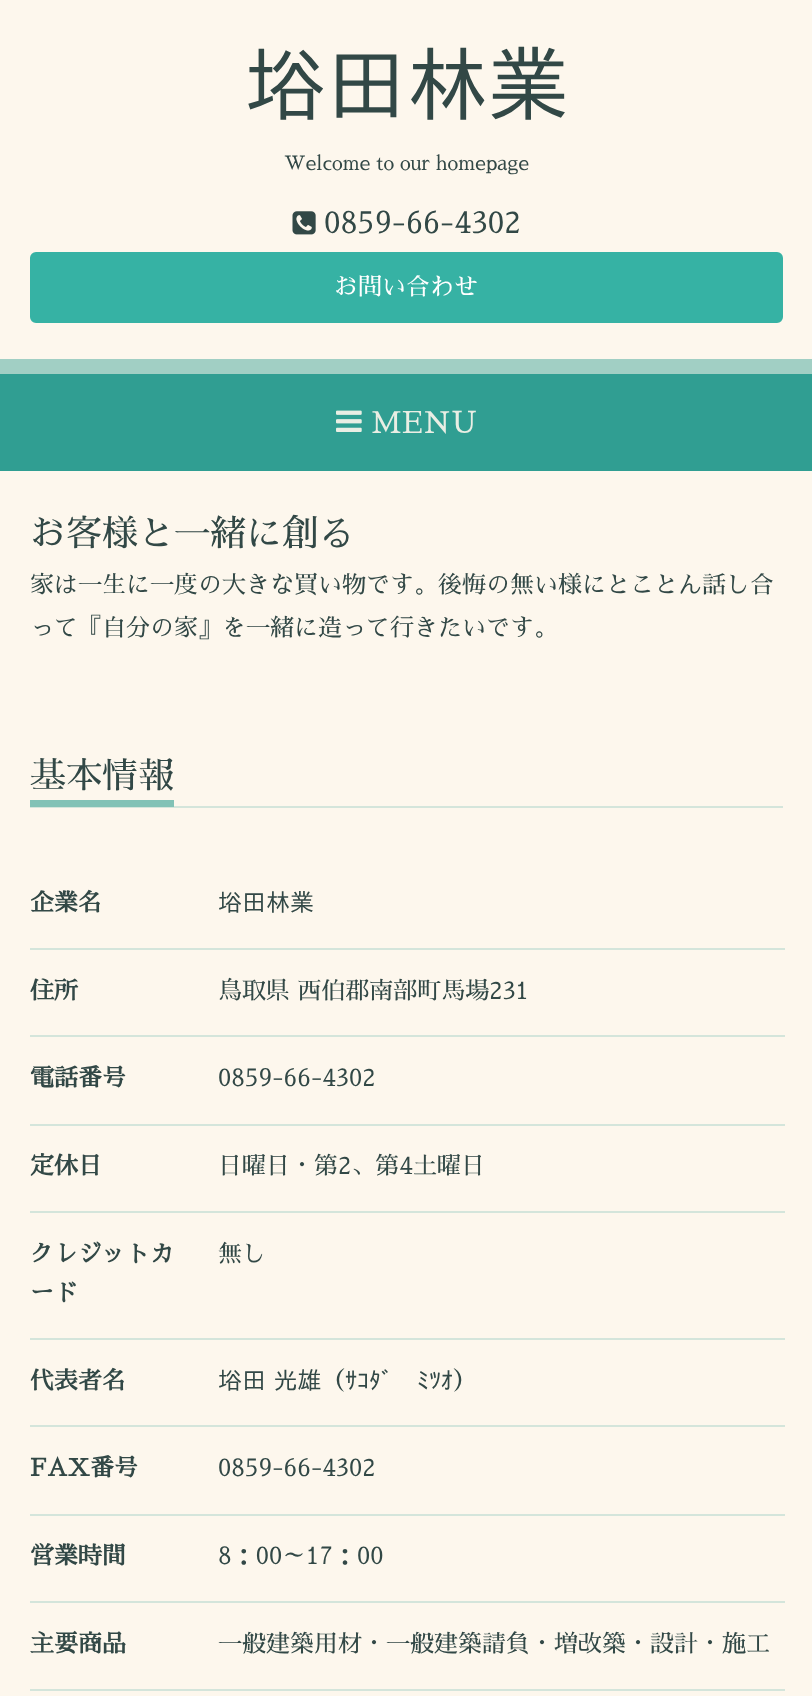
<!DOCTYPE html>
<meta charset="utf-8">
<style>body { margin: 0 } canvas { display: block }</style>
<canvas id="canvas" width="812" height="1696"></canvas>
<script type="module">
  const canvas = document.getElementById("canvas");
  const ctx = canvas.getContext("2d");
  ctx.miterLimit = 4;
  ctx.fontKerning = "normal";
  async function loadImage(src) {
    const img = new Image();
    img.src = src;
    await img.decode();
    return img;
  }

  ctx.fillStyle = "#fdf7ed";
  ctx.fillRect(0, 0, 812, 1696);
  ctx.font = "81px IPAPGothic";
  ctx.fillStyle = "#324846";
  ctx.fillText("﨏田林業", 245, 114);
  ctx.font = "19.5px Sawarabi Mincho";
  ctx.fillText("Welcome to our homepage", 284, 170);
  ctx.drawImage(await loadImage("img1.png"), 292, 211, 24, 24);
  ctx.font = "30px Sawarabi Mincho";
  ctx.fillText("0859-66-4302", 324, 233);
  ctx.fillStyle = "#36b2a4";
  ctx.beginPath();
  ctx.roundRect(31, 253, 751, 69, 5);
  ctx.fill();
  ctx.strokeStyle = "#36b2a4";
  ctx.lineWidth = 2;
  ctx.stroke();
  ctx.font = "24px Sawarabi Mincho";
  ctx.fillStyle = "#ffffff";
  ctx.fillText("お問い合わせ", 334, 295);
  ctx.fillStyle = "#a1cfc4";
  ctx.fillRect(0, 359, 812, 15);
  ctx.fillStyle = "#309e92";
  ctx.fillRect(0, 374, 812, 97);
  ctx.drawImage(await loadImage("img2.png"), 336, 410, 26, 22);
  ctx.font = "30px Sawarabi Mincho";
  ctx.fillStyle = "#e9eee4";
  ctx.fillText("MENU", 371, 433);
  ctx.font = "36px Sawarabi Mincho";
  ctx.fillStyle = "#324846";
  ctx.fillText("お客様と一緒に創る", 30, 546);
  ctx.font = "24px Sawarabi Mincho";
  ctx.fillText("家は一生に一度の大きな買い物です。後悔の無い様にとことん話し合", 30, 593);
  ctx.fillText("って『自分の家』を一緒に造って行きたいです。", 30, 636);
  ctx.fillStyle = "#d4e5db";
  ctx.fillRect(30, 806, 753, 2);
  ctx.fillStyle = "#82c2b6";
  ctx.fillRect(30, 800, 144, 7);
  ctx.font = "36px Sawarabi Mincho";
  ctx.fillStyle = "#324846";
  ctx.fillText("基本情報", 30, 788);
  ctx.font = "bold 24px Sawarabi Mincho";
  ctx.fillText("企業名", 30, 911);
  ctx.font = "24px IPAPGothic";
  ctx.fillText("﨏田林業", 218, 911);
  ctx.fillStyle = "#d4e5db";
  ctx.fillRect(30, 948, 755, 2);
  ctx.font = "bold 24px Sawarabi Mincho";
  ctx.fillStyle = "#324846";
  ctx.fillText("住所", 30, 999);
  ctx.font = "24px Sawarabi Mincho";
  ctx.fillText("鳥取県 西伯郡南部町馬場231", 218, 999);
  ctx.fillStyle = "#d4e5db";
  ctx.fillRect(30, 1035, 755, 2);
  ctx.font = "bold 24px Sawarabi Mincho";
  ctx.fillStyle = "#324846";
  ctx.fillText("電話番号", 30, 1086);
  ctx.font = "24px Sawarabi Mincho";
  ctx.fillText("0859-66-4302", 218, 1086);
  ctx.fillStyle = "#d4e5db";
  ctx.fillRect(30, 1124, 755, 2);
  ctx.font = "bold 24px Sawarabi Mincho";
  ctx.fillStyle = "#324846";
  ctx.fillText("定休日", 30, 1174);
  ctx.font = "24px Sawarabi Mincho";
  ctx.fillText("日曜日・第2、第4土曜日", 218, 1174);
  ctx.fillStyle = "#d4e5db";
  ctx.fillRect(30, 1211, 755, 2);
  ctx.font = "bold 24px Sawarabi Mincho";
  ctx.fillStyle = "#324846";
  ctx.fillText("クレジットカ", 30, 1262);
  ctx.fillText("ード", 30, 1301);
  ctx.font = "24px Sawarabi Mincho";
  ctx.fillText("無し", 218, 1262);
  ctx.fillStyle = "#d4e5db";
  ctx.fillRect(30, 1338, 755, 2);
  ctx.font = "bold 24px Sawarabi Mincho";
  ctx.fillStyle = "#324846";
  ctx.fillText("代表者名", 30, 1389);
  ctx.wordSpacing = "1px";
  ctx.font = "24px IPAPGothic";
  ctx.fillText("﨏田 光雄", 218, 1389);
  ctx.wordSpacing = "0px";
  ctx.font = "24px Sawarabi Mincho";
  ctx.fillText("（", 321, 1389);
  ctx.font = "24px IPAPGothic";
  ctx.fillText("ｻｺﾀﾞ", 345, 1389);
  ctx.fillText("ﾐﾂｵ", 417, 1389);
  ctx.font = "24px Sawarabi Mincho";
  ctx.fillText("）", 453, 1389);
  ctx.fillStyle = "#d4e5db";
  ctx.fillRect(30, 1425, 755, 2);
  ctx.font = "bold 24px Sawarabi Mincho";
  ctx.fillStyle = "#324846";
  ctx.fillText("FAX番号", 30, 1476);
  ctx.font = "24px Sawarabi Mincho";
  ctx.fillText("0859-66-4302", 218, 1476);
  ctx.fillStyle = "#d4e5db";
  ctx.fillRect(30, 1514, 755, 2);
  ctx.font = "bold 24px Sawarabi Mincho";
  ctx.fillStyle = "#324846";
  ctx.fillText("営業時間", 30, 1564);
  ctx.font = "24px Sawarabi Mincho";
  ctx.fillText("8：00～17：00", 218, 1564);
  ctx.fillStyle = "#d4e5db";
  ctx.fillRect(30, 1601, 755, 2);
  ctx.font = "bold 24px Sawarabi Mincho";
  ctx.fillStyle = "#324846";
  ctx.fillText("主要商品", 30, 1652);
  ctx.font = "24px Sawarabi Mincho";
  ctx.fillText("一般建築用材・一般建築請負・増改築・設計・施工", 218, 1652);
  ctx.fillStyle = "#d4e5db";
  ctx.fillRect(30, 1689, 755, 2);
</script>
